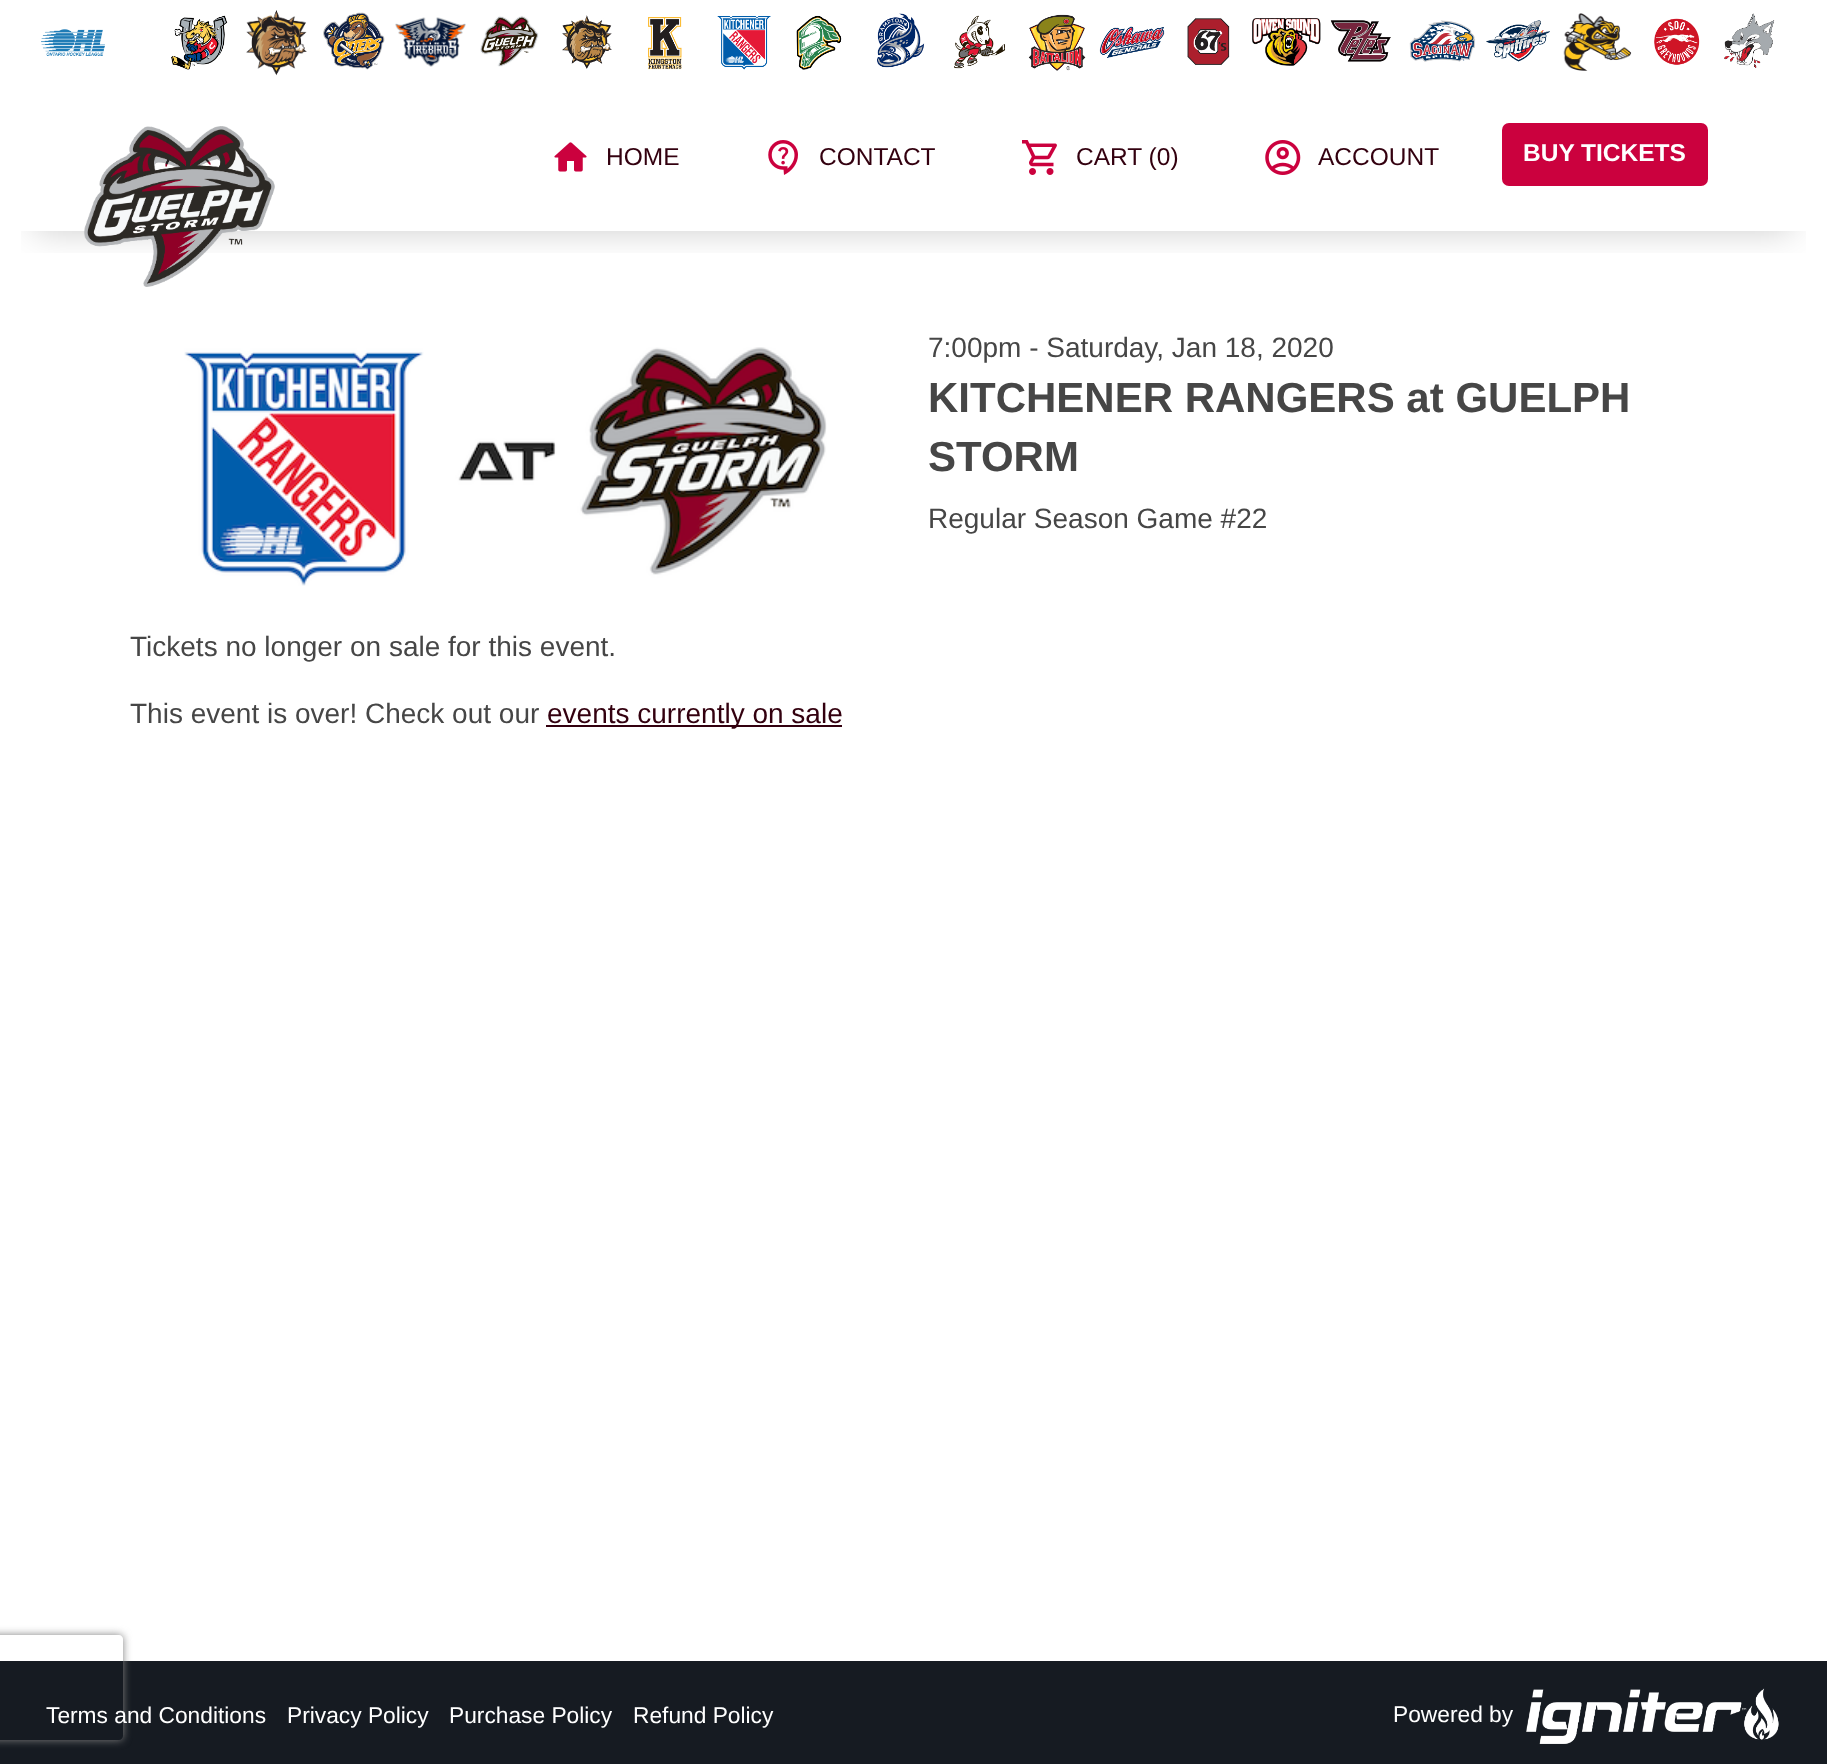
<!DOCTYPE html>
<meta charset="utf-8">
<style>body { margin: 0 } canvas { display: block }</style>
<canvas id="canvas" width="1827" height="1764"></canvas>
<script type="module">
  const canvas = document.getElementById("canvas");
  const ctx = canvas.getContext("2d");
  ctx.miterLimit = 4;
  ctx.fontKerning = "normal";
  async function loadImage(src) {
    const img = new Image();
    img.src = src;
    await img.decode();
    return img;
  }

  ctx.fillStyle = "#ffffff";
  ctx.fillRect(0, 0, 1827, 1764);
  ctx.drawImage(await loadImage("img1.png"), 41, 29, 64, 27);
  ctx.drawImage(await loadImage("img2.png"), 171, 15, 57, 55);
  ctx.drawImage(await loadImage("img3.png"), 246, 10, 61, 66);
  ctx.drawImage(await loadImage("img4.png"), 323, 12, 62, 58);
  ctx.drawImage(await loadImage("img5.png"), 395, 17, 71, 50);
  ctx.drawImage(await loadImage("img6.png"), 480, 15, 59, 52);
  ctx.drawImage(await loadImage("img7.png"), 562, 15, 50, 54);
  ctx.drawImage(await loadImage("img8.png"), 648, 17, 34, 53);
  ctx.drawImage(await loadImage("img9.png"), 717, 16, 54, 54);
  ctx.drawImage(await loadImage("img10.png"), 796, 15, 46, 55);
  ctx.drawImage(await loadImage("img11.png"), 877, 13, 48, 55);
  ctx.drawImage(await loadImage("img12.png"), 954, 15, 52, 54);
  ctx.drawImage(await loadImage("img13.png"), 1028, 14, 58, 57);
  ctx.drawImage(await loadImage("img14.png"), 1099, 26, 66, 32);
  ctx.drawImage(await loadImage("img15.png"), 1187, 18, 43, 47);
  ctx.drawImage(await loadImage("img16.png"), 1252, 18, 69, 48);
  ctx.drawImage(await loadImage("img17.png"), 1330, 20, 61, 42);
  ctx.drawImage(await loadImage("img18.png"), 1409, 20, 67, 42);
  ctx.drawImage(await loadImage("img19.png"), 1486, 20, 64, 42);
  ctx.drawImage(await loadImage("img20.png"), 1563, 13, 69, 58);
  ctx.drawImage(await loadImage("img21.png"), 1654, 18, 46, 47);
  ctx.drawImage(await loadImage("img22.png"), 1724, 13, 51, 55);
  ctx.save();
  ctx.beginPath();
  ctx.rect(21, 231, 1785, 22);
  ctx.clip();
  ctx.fillStyle = "rgba(0, 0, 0, 0.2)";
  ctx.filter = "blur(17.5px)";
  ctx.beginPath();
  ctx.rect(35, 154, 1757, 77);
  ctx.fill();
  ctx.filter = "none";
  ctx.restore();
  ctx.drawImage(await loadImage("img23.png"), 84, 126, 191, 161);
  ctx.drawImage(await loadImage("img24.png"), 554, 142, 33, 30);
  ctx.font = "24.5px Liberation Sans";
  ctx.fillStyle = "#33000f";
  ctx.fillText("HOME", 606, 165);
  ctx.drawImage(await loadImage("img25.png"), 768, 140, 30, 35);
  ctx.fillText("CONTACT", 819, 165);
  ctx.drawImage(await loadImage("img26.png"), 1022, 140, 35, 35);
  ctx.fillText("CART (0)", 1076, 165);
  ctx.drawImage(await loadImage("img27.png"), 1265, 140, 36, 35);
  ctx.fillText("ACCOUNT", 1318, 165);
  ctx.fillStyle = "#cb013e";
  ctx.beginPath();
  ctx.roundRect(1502, 123, 206, 63, 7);
  ctx.fill();
  ctx.font = "bold 24.5px Liberation Sans";
  ctx.fillStyle = "#ffffff";
  ctx.fillText("BUY TICKETS", 1523, 161);
  ctx.drawImage(await loadImage("img28.png"), 184, 347, 643, 239);
  ctx.font = "28px Liberation Sans";
  ctx.fillStyle = "#464646";
  ctx.fillText("7:00pm - Saturday, Jan 18, 2020", 928, 357);
  ctx.font = "bold 42px Liberation Sans";
  ctx.fillText("KITCHENER RANGERS at GUELPH", 928, 412);
  ctx.fillText("STORM", 928, 471);
  ctx.font = "28px Liberation Sans";
  ctx.fillText("Regular Season Game #22", 928, 528);
  ctx.fillText("Tickets no longer on sale for this event.", 130, 656);
  ctx.fillText("This event is over! Check out our", 130, 723);
  ctx.fillStyle = "#33000f";
  ctx.fillRect(546, 725, 296, 2);
  ctx.fillText("events currently on sale", 547, 723);
  ctx.fillStyle = "#161b22";
  ctx.fillRect(0, 1661, 1827, 103);
  ctx.save();
  ctx.beginPath();
  ctx.moveTo(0, 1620);
  ctx.lineTo(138, 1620);
  ctx.lineTo(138, 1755);
  ctx.lineTo(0, 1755);
  ctx.closePath();
  ctx.moveTo(-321, 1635);
  ctx.lineTo(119, 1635);
  ctx.bezierCurveTo(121, 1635, 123, 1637, 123, 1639);
  ctx.lineTo(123, 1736);
  ctx.bezierCurveTo(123, 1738, 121, 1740, 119, 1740);
  ctx.lineTo(-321, 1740);
  ctx.bezierCurveTo(-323, 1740, -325, 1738, -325, 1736);
  ctx.lineTo(-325, 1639);
  ctx.bezierCurveTo(-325, 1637, -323, 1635, -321, 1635);
  ctx.closePath();
  ctx.clip("evenodd");
  ctx.fillStyle = "#808080";
  ctx.filter = "blur(4.5px)";
  ctx.beginPath();
  ctx.roundRect(-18, 1635, 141, 105, 4);
  ctx.fill();
  ctx.filter = "none";
  ctx.restore();
  ctx.font = "22.75px Liberation Sans";
  ctx.fillStyle = "#ffffff";
  ctx.fillText("Terms and Conditions", 46, 1723);
  ctx.fillText("Privacy Policy", 287, 1723);
  ctx.fillText("Purchase Policy", 449, 1723);
  ctx.fillText("Refund Policy", 633, 1723);
  ctx.fillText("Powered by", 1393, 1722);
  ctx.drawImage(await loadImage("img29.png"), 1526, 1688, 253, 56);
</script>
